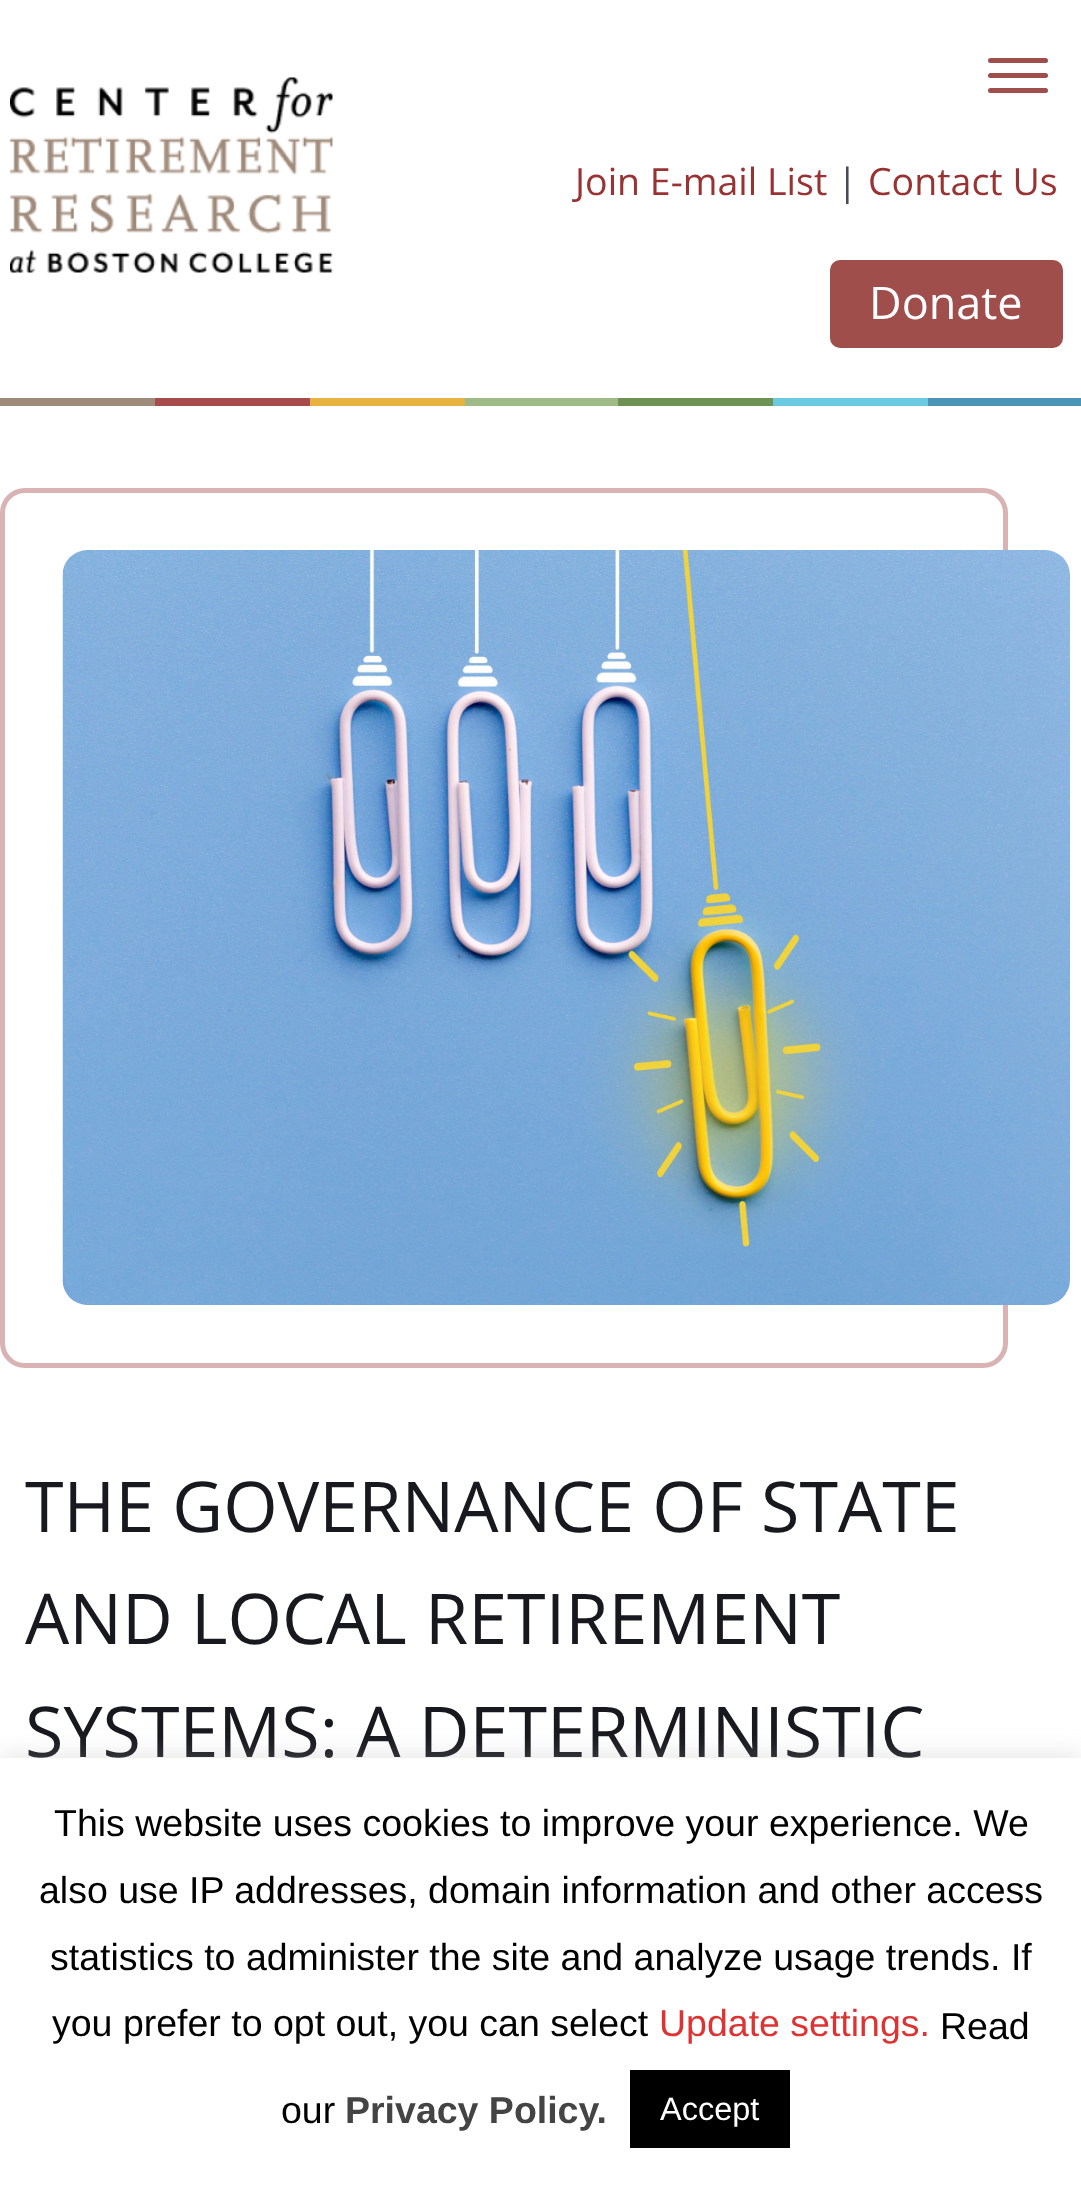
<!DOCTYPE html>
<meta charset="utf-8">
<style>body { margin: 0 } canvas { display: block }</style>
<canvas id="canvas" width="1081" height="2189"></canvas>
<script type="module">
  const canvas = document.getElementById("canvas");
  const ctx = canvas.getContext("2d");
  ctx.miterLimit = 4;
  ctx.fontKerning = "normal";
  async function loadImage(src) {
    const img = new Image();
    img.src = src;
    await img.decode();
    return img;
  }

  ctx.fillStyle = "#ffffff";
  ctx.fillRect(0, 0, 1081, 2189);
  ctx.fillStyle = "#9f4e4b";
  ctx.beginPath();
  ctx.roundRect(988, 58, 60, 5, 2.5);
  ctx.fill();
  ctx.beginPath();
  ctx.roundRect(988, 73, 60, 5, 2.5);
  ctx.fill();
  ctx.beginPath();
  ctx.roundRect(988, 88, 60, 5, 2.5);
  ctx.fill();
  ctx.drawImage(await loadImage("img1.png"), 10, 77, 323, 196);
  ctx.font = "37.5px Open Sans";
  ctx.fillStyle = "#993333";
  ctx.fillText("Join E-mail List", 575, 195);
  ctx.fillStyle = "#474a57";
  ctx.fillText("|", 837, 195);
  ctx.fillStyle = "#993333";
  ctx.fillText("Contact Us", 868, 195);
  ctx.fillStyle = "#9f4e4b";
  ctx.beginPath();
  ctx.roundRect(830, 260, 233, 88, 10);
  ctx.fill();
  ctx.font = "45px Open Sans";
  ctx.fillStyle = "#ffffff";
  ctx.fillText("Donate", 869, 319);
  ctx.fillStyle = "#9f8b79";
  ctx.fillRect(0, 398, 155, 8);
  ctx.fillStyle = "#a64c4c";
  ctx.fillRect(155, 398, 155, 8);
  ctx.fillStyle = "#e8b240";
  ctx.fillRect(310, 398, 155, 8);
  ctx.fillStyle = "#9dba87";
  ctx.fillRect(465, 398, 153, 8);
  ctx.fillStyle = "#6e9254";
  ctx.fillRect(618, 398, 155, 8);
  ctx.fillStyle = "#6acae1";
  ctx.fillRect(773, 398, 155, 8);
  ctx.fillStyle = "#4c94b7";
  ctx.fillRect(928, 398, 153, 8);
  ctx.beginPath();
  ctx.roundRect(2.5, 490.5, 1003, 875, 22.5);
  ctx.strokeStyle = "#d9b3b3";
  ctx.lineWidth = 5;
  ctx.stroke();
  ctx.drawImage(await loadImage("img2.png"), 62, 550, 1008, 755);
  ctx.font = "70px Open Sans";
  ctx.fillStyle = "#18191f";
  ctx.fillText("THE GOVERNANCE OF STATE", 25, 1532);
  ctx.fillText("AND LOCAL RETIREMENT", 25, 1644);
  ctx.fillText("SYSTEMS: A DETERMINISTIC", 25, 1757);
  ctx.fillStyle = "rgba(172, 171, 171, 0.3)";
  ctx.filter = "blur(12.5px)";
  ctx.beginPath();
  ctx.rect(0, 1755, 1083, 433);
  ctx.fill();
  ctx.filter = "none";
  ctx.fillStyle = "#ffffff";
  ctx.fillRect(0, 1758, 1081, 431);
  ctx.font = "37.5px Liberation Sans";
  ctx.fillStyle = "#000000";
  ctx.fillText("This website uses cookies to improve your experience. We", 54, 1836);
  ctx.fillText("also use IP addresses, domain information and other access", 39, 1903);
  ctx.fillText("statistics to administer the site and analyze usage trends. If", 50, 1970);
  ctx.fillText("you prefer to opt out, you can select", 52, 2036);
  ctx.fillStyle = "#dd3333";
  ctx.fillText("Update settings.", 659, 2036);
  ctx.fillStyle = "#000000";
  ctx.fillText("Read", 940, 2039);
  ctx.fillText("our", 281, 2123);
  ctx.font = "bold 37.5px Liberation Sans";
  ctx.fillStyle = "#444444";
  ctx.fillText("Privacy Policy.", 345, 2123);
  ctx.fillStyle = "#000000";
  ctx.fillRect(630, 2070, 160, 78);
  ctx.font = "32.5px Liberation Sans";
  ctx.fillStyle = "#ffffff";
  ctx.fillText("Accept", 660, 2120);
</script>
